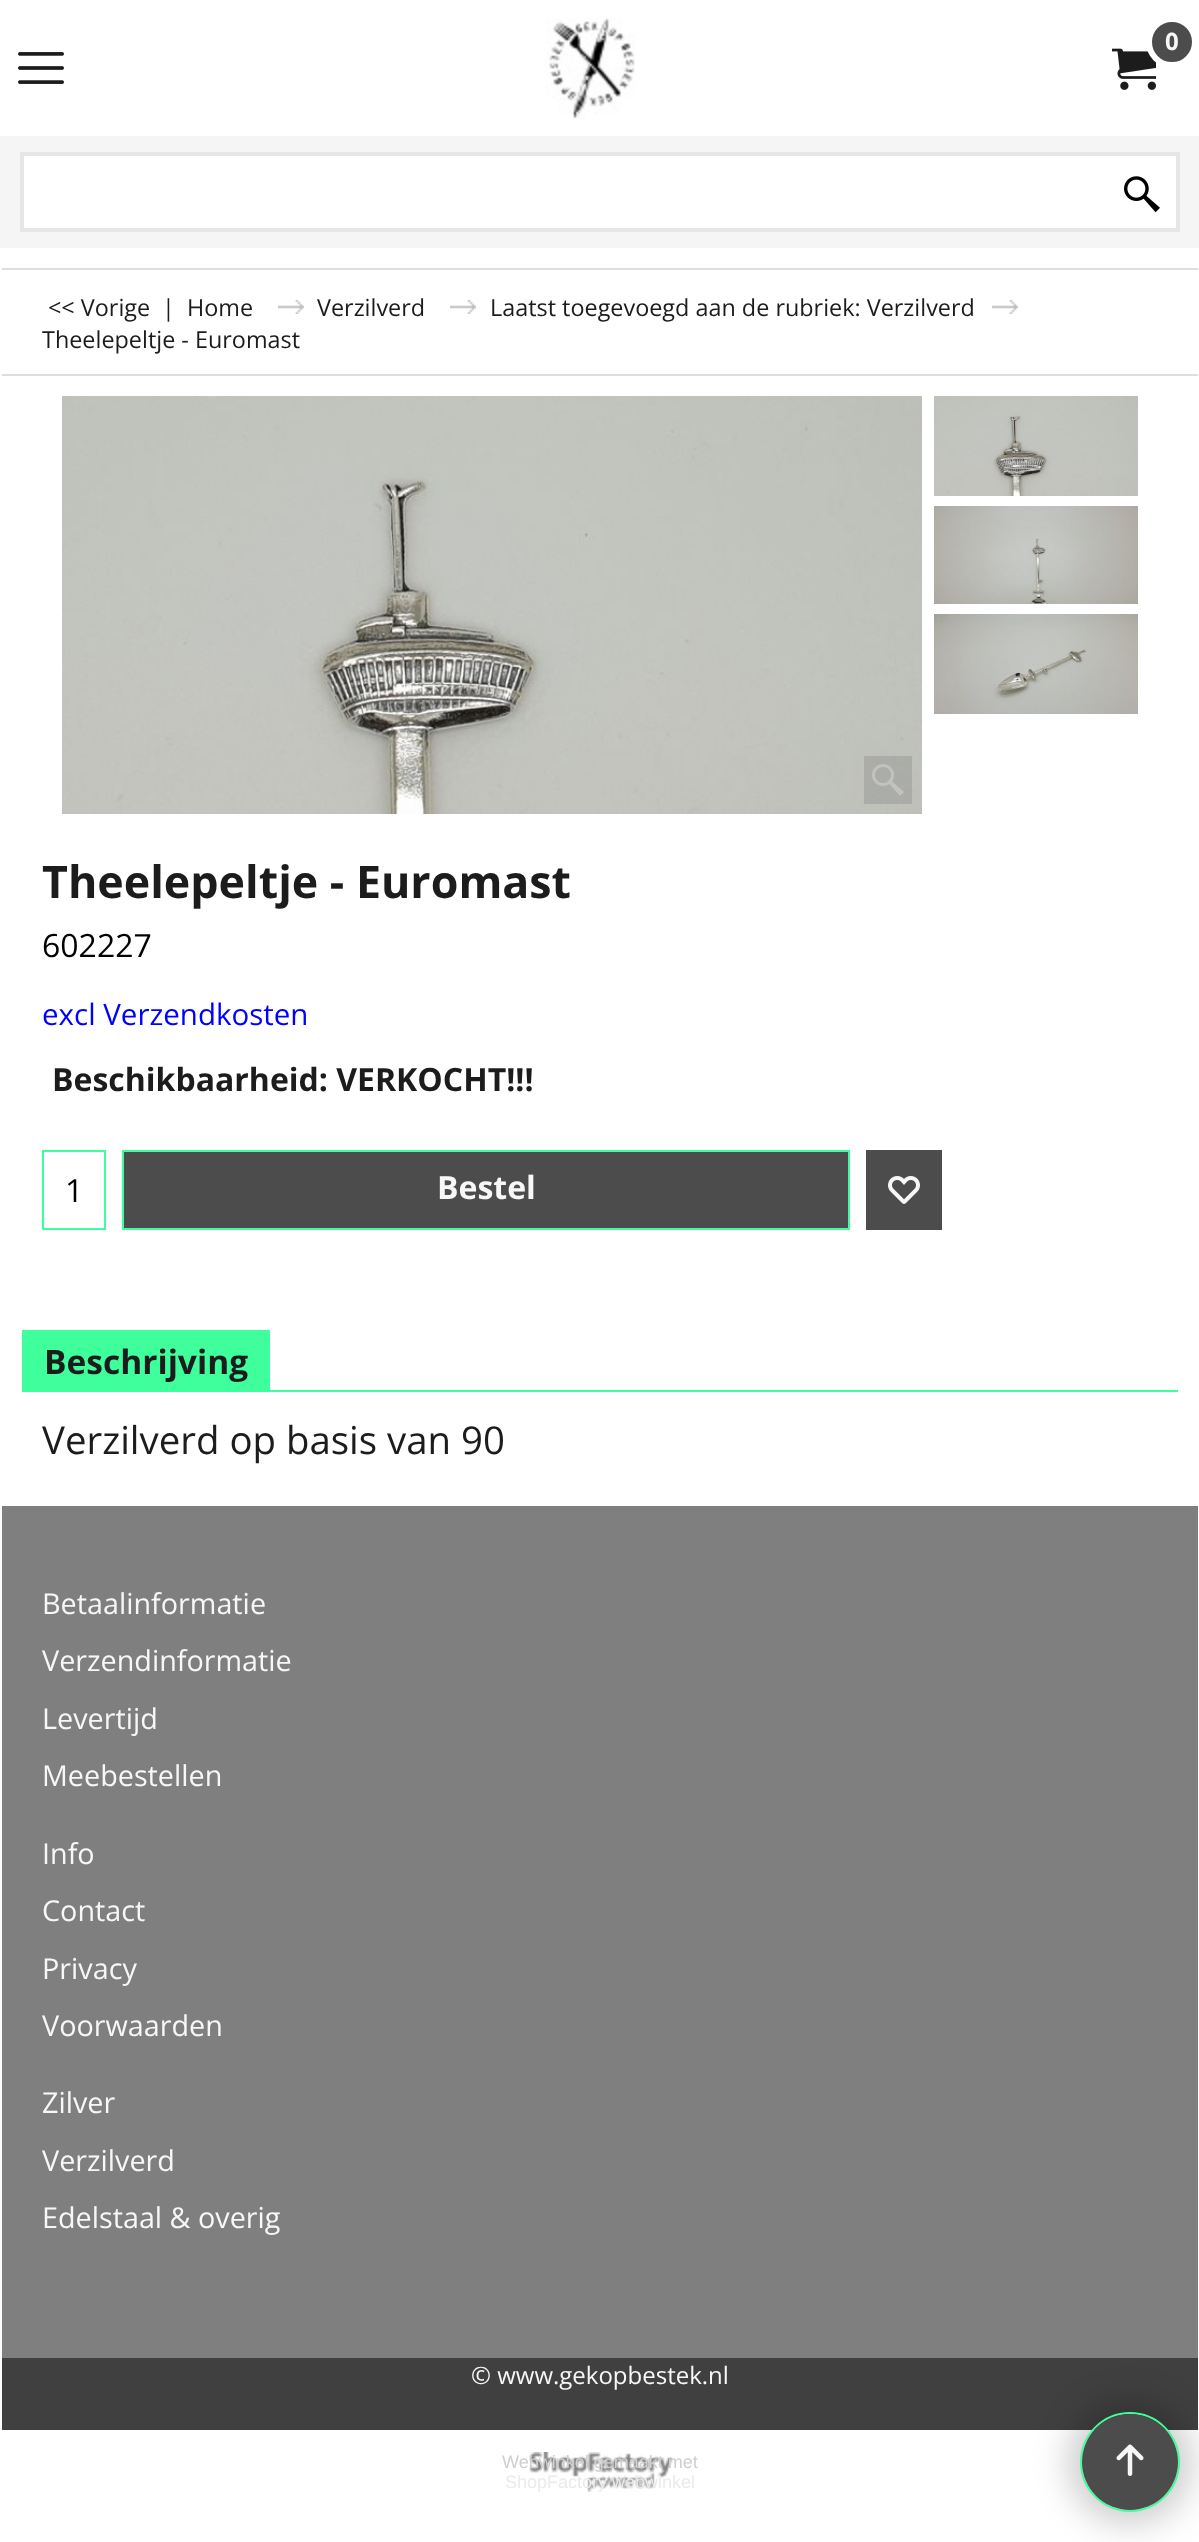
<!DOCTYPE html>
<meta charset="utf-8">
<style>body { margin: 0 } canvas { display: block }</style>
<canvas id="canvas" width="1199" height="2542"></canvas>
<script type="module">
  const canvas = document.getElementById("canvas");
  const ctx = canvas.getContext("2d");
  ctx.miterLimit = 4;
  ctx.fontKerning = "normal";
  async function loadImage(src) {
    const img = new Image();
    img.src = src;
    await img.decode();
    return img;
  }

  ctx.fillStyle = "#ffffff";
  ctx.fillRect(0, 0, 1199, 2542);
  ctx.drawImage(await loadImage("img1.png"), 545, 18, 90, 100);
  ctx.drawImage(await loadImage("img2.png"), 1112, 48, 44, 42);
  ctx.fillStyle = "#4c4c4c";
  ctx.beginPath();
  ctx.arc(1172, 42, 23, 0, Math.PI * 2);
  ctx.fill();
  ctx.strokeStyle = "#ffffff";
  ctx.lineWidth = 6;
  ctx.stroke();
  ctx.font = "bold 24px Open Sans";
  ctx.fillStyle = "#f7f7f7";
  ctx.fillText("0", 1165, 50);
  ctx.drawImage(await loadImage("img3.png"), 18, 52, 46, 32);
  ctx.fillStyle = "#f5f5f6";
  ctx.fillRect(0, 136, 1199, 112);
  ctx.fillStyle = "#ffffff";
  ctx.beginPath();
  ctx.rect(22, 154, 1156, 76);
  ctx.fill();
  ctx.strokeStyle = "#e6e6e6";
  ctx.lineWidth = 4;
  ctx.stroke();
  ctx.drawImage(await loadImage("img4.png"), 1124, 176, 36, 37);
  ctx.save();
  ctx.beginPath();
  ctx.rect(2, 250, 1196, 2180);
  ctx.clip();
  ctx.strokeStyle = "#dedede";
  ctx.lineWidth = 2;
  ctx.strokeRect(-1, 269, 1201, 106);
  ctx.restore();
  ctx.font = "23.4px Open Sans";
  ctx.fillStyle = "#1c1c1c";
  ctx.fillText("<< Vorige", 48, 316);
  ctx.fillText("|", 162, 316);
  ctx.fillText("Home", 187, 316);
  ctx.drawImage(await loadImage("img5.png"), 278, 300, 26, 14);
  ctx.fillText("Verzilverd", 317, 316);
  ctx.drawImage(await loadImage("img5.png"), 450, 300, 26, 14);
  ctx.fillText("Laatst toegevoegd aan de rubriek: Verzilverd", 490, 316);
  ctx.drawImage(await loadImage("img5.png"), 992, 300, 26, 14);
  ctx.fillText("Theelepeltje - Euromast", 42, 348);
  ctx.drawImage(await loadImage("img6.png"), 62, 396, 860, 418);
  ctx.fillStyle = "rgba(127, 127, 127, 0.3)";
  ctx.fillRect(864, 756, 48, 48);
  ctx.drawImage(await loadImage("img7.png"), 872, 764, 32, 32);
  ctx.drawImage(await loadImage("img8.png"), 934, 396, 204, 100);
  ctx.drawImage(await loadImage("img9.png"), 934, 506, 204, 98);
  ctx.drawImage(await loadImage("img10.png"), 934, 614, 204, 100);
  ctx.font = "bold 44.75px Open Sans";
  ctx.fillStyle = "#1c1c1c";
  ctx.fillText("Theelepeltje - Euromast", 42, 898);
  ctx.font = "32px Open Sans";
  ctx.fillStyle = "#000000";
  ctx.fillText("602227", 42, 957);
  ctx.font = "29.5px Open Sans";
  ctx.fillStyle = "#0000ff";
  ctx.fillText("excl Verzendkosten", 42, 1025);
  ctx.font = "bold 32px Open Sans";
  ctx.fillStyle = "#1c1c1c";
  ctx.fillText("Beschikbaarheid: VERKOCHT!!!", 52, 1091);
  ctx.strokeStyle = "#3fff9c";
  ctx.lineWidth = 2;
  ctx.strokeRect(43, 1151, 62, 78);
  ctx.font = "32px Open Sans";
  ctx.fillStyle = "#000000";
  ctx.fillText("1", 65, 1202);
  ctx.fillStyle = "#4c4c4c";
  ctx.beginPath();
  ctx.rect(123, 1151, 726, 78);
  ctx.fill();
  ctx.stroke();
  ctx.font = "bold 32px Open Sans";
  ctx.fillStyle = "#f7f7f7";
  ctx.fillText("Bestel", 437, 1199);
  ctx.fillStyle = "#4c4c4c";
  ctx.fillRect(866, 1150, 76, 80);
  ctx.drawImage(await loadImage("img11.png"), 888, 1176, 32, 28);
  ctx.fillStyle = "#3fff9c";
  ctx.fillRect(22, 1330, 248, 62);
  ctx.font = "bold 33.5px Open Sans";
  ctx.fillStyle = "#1c1c1c";
  ctx.fillText("Beschrijving", 44, 1374);
  ctx.fillStyle = "#3fff9c";
  ctx.fillRect(270, 1390, 908, 2);
  ctx.font = "38.4px Open Sans";
  ctx.fillStyle = "#1c1c1c";
  ctx.fillText("Verzilverd op basis van 90", 42, 1454);
  ctx.fillStyle = "#7f7f7f";
  ctx.fillRect(2, 1506, 1196, 852);
  ctx.font = "28.75px Open Sans";
  ctx.fillStyle = "#f7f7f7";
  ctx.fillText("Betaalinformatie", 42, 1614);
  ctx.fillText("Verzendinformatie", 42, 1671);
  ctx.fillText("Levertijd", 42, 1729);
  ctx.fillText("Meebestellen", 42, 1786);
  ctx.fillText("Info", 42, 1864);
  ctx.fillText("Contact", 42, 1921);
  ctx.fillText("Privacy", 42, 1979);
  ctx.fillText("Voorwaarden", 42, 2036);
  ctx.fillText("Zilver", 42, 2113);
  ctx.fillText("Verzilverd", 42, 2171);
  ctx.fillText("Edelstaal & overig", 42, 2228);
  ctx.fillStyle = "#404040";
  ctx.fillRect(2, 2358, 1196, 72);
  ctx.font = "24px Open Sans";
  ctx.fillStyle = "#f7f7f7";
  ctx.fillText("© www.gekopbestek.nl", 471, 2384);
  ctx.drawImage(await loadImage("img12.png"), 529, 2452, 144, 40);
  ctx.font = "18px Liberation Sans";
  ctx.fillStyle = "#cfcfcf";
  ctx.fillText("Webwinkel gemaakt met", 502, 2468);
  ctx.fillStyle = "#ebebeb";
  ctx.fillText("ShopFactory webwinkel", 505, 2488);
  ctx.fillStyle = "rgba(0, 0, 0, 0.2)";
  ctx.filter = "blur(17px)";
  ctx.beginPath();
  ctx.roundRect(1068, 2400, 124, 124, 62);
  ctx.fill();
  ctx.filter = "none";
  ctx.beginPath();
  ctx.arc(1130, 2462, 49, 0, Math.PI * 2);
  ctx.stroke();
  ctx.fillStyle = "#4c4c4c";
  ctx.beginPath();
  ctx.arc(1130, 2462, 48, 0, Math.PI * 2);
  ctx.fill();
  ctx.drawImage(await loadImage("img13.png"), 1116, 2444, 28, 32);
</script>
